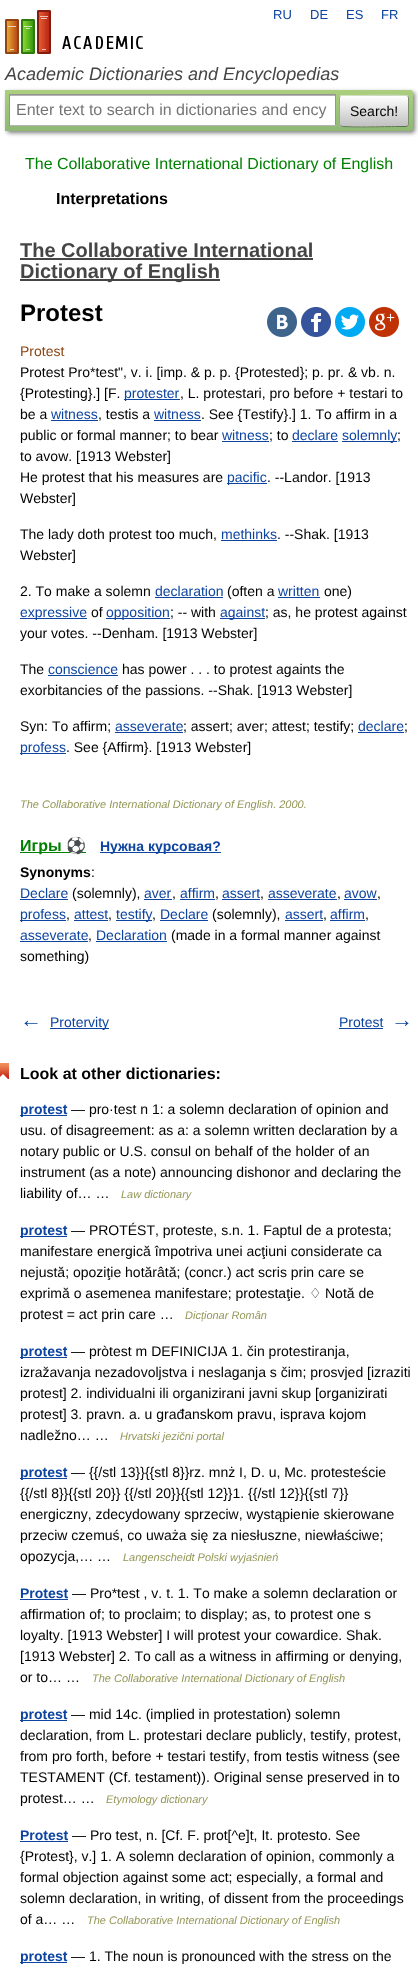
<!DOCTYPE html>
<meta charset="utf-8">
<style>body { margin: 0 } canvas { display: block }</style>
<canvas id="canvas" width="418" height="1976"></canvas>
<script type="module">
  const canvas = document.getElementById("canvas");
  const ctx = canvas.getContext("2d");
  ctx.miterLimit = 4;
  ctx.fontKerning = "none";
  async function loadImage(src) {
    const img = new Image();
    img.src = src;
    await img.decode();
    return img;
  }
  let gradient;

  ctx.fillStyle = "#ffffff";
  ctx.fillRect(0, 0, 418, 1976);
  ctx.drawImage(await loadImage("img1.png"), 5, 10, 138, 44);
  ctx.font = "13px Liberation Sans";
  ctx.fillStyle = "#0d44a0";
  ctx.fillText("RU", 273, 19);
  ctx.fillText("DE", 310, 19);
  ctx.fillText("ES", 346, 19);
  ctx.fillText("FR", 381, 19);
  ctx.font = "italic 18px Liberation Sans";
  ctx.fillStyle = "#454545";
  ctx.fillText("Academic Dictionaries and Encyclopedias", 5, 80);
  ctx.fillStyle = "rgba(0, 0, 0, 0.5)";
  ctx.filter = "blur(2px)";
  ctx.beginPath();
  ctx.roundRect(7, 92, 408, 41, 3);
  ctx.fill();
  ctx.filter = "none";
  gradient = ctx.createLinearGradient(209, 90, 209, 131);
  gradient.addColorStop(0, "#abcf7e");
  gradient.addColorStop(1, "#8eb874");
  ctx.fillStyle = gradient;
  ctx.beginPath();
  ctx.roundRect(5, 90, 408, 41, [0, 3, 3, 0]);
  ctx.fill();
  ctx.fillStyle = "#ffffff";
  ctx.fillRect(10, 96, 325, 29);
  ctx.fillStyle = "#b3b3b3";
  ctx.fillRect(10, 95, 325, 1);
  ctx.fillStyle = "#949494";
  ctx.fillRect(9, 94, 327, 1);
  ctx.fillRect(335, 94, 1, 32);
  ctx.fillStyle = "#b4b4b4";
  ctx.fillRect(9, 125, 327, 1);
  ctx.fillStyle = "#949494";
  ctx.fillRect(9, 94, 1, 32);
  ctx.font = "16px Liberation Sans";
  ctx.fillStyle = "#757575";
  ctx.fillText("Enter text to search in dictionaries and ency", 16, 115);
  ctx.save();
  ctx.beginPath();
  ctx.roundRect(339, 95, 70, 32, 3);
  ctx.clip();
  gradient = ctx.createLinearGradient(374, 66, 374, 96);
  gradient.addColorStop(0, "#ffffff");
  gradient.addColorStop(1, "#c1c1c1");
  ctx.fillStyle = gradient;
  ctx.fillRect(339, 95, 70, 1);
  gradient = ctx.createLinearGradient(374, 96, 374, 126);
  gradient.addColorStop(0, "#ffffff");
  gradient.addColorStop(1, "#c1c1c1");
  ctx.fillStyle = gradient;
  ctx.fillRect(339, 96, 70, 30);
  gradient = ctx.createLinearGradient(374, 126, 374, 156);
  gradient.addColorStop(0, "#ffffff");
  gradient.addColorStop(1, "#c1c1c1");
  ctx.fillStyle = gradient;
  ctx.fillRect(339, 126, 70, 1);
  ctx.restore();
  ctx.beginPath();
  ctx.moveTo(340, 96);
  ctx.lineTo(342, 95.5);
  ctx.lineTo(352.5, 95.5);
  ctx.bezierCurveTo(359, 95.5, 405.5, 94.5, 407.5, 96);
  ctx.lineTo(408, 96);
  ctx.strokeStyle = "#d1e4bc";
  ctx.stroke();
  ctx.beginPath();
  ctx.moveTo(408, 96);
  ctx.bezierCurveTo(408, 96.5, 408.5, 97.5, 408.5, 98);
  ctx.lineTo(408.5, 124);
  ctx.bezierCurveTo(408.5, 124.5, 408, 125.5, 408, 126);
  ctx.strokeStyle = "#7a8e69";
  ctx.stroke();
  ctx.beginPath();
  ctx.moveTo(408, 126);
  ctx.lineTo(406, 126.5);
  ctx.lineTo(395.5, 126.5);
  ctx.bezierCurveTo(389, 126.5, 342.5, 127.5, 340.5, 126);
  ctx.lineTo(340, 126);
  ctx.strokeStyle = "#5d7250";
  ctx.stroke();
  ctx.beginPath();
  ctx.moveTo(340, 126);
  ctx.bezierCurveTo(340, 125.5, 339.5, 124.5, 339.5, 124);
  ctx.lineTo(339.5, 98);
  ctx.bezierCurveTo(339.5, 97.5, 340, 96.5, 340, 96);
  ctx.strokeStyle = "#9aae89";
  ctx.stroke();
  ctx.font = "14px Liberation Sans";
  ctx.fillStyle = "#000000";
  ctx.fillText("Search!", 350, 116);
  ctx.font = "16px Liberation Sans";
  ctx.fillStyle = "#008000";
  ctx.fillText("The Collaborative International Dictionary of English", 25, 169);
  ctx.font = "bold 16px Liberation Sans";
  ctx.fillStyle = "#000000";
  ctx.fillText("Interpretations", 56, 204);
  ctx.font = "bold 20px Liberation Sans";
  ctx.fillStyle = "#454545";
  ctx.fillText("The Collaborative International", 20, 257);
  ctx.fillRect(20, 258, 293, 2);
  ctx.fillRect(20, 279, 200, 2);
  ctx.fillText("Dictionary of English", 20, 278);
  ctx.font = "bold 24px Liberation Sans";
  ctx.fillStyle = "#000000";
  ctx.fillText("Protest", 20, 321);
  ctx.drawImage(await loadImage("img2.png"), 267, 307, 30, 30);
  ctx.drawImage(await loadImage("img3.png"), 301, 307, 30, 30);
  ctx.drawImage(await loadImage("img4.png"), 335, 307, 30, 30);
  ctx.drawImage(await loadImage("img5.png"), 369, 307, 30, 30);
  ctx.font = "14px Liberation Sans";
  ctx.fillStyle = "#8b4513";
  ctx.fillText("Protest", 20, 356);
  ctx.fillStyle = "#000000";
  ctx.fillText("Protest Pro*test\", v. i. [imp. & p. p. {Protested}; p. pr. & vb. n.", 20, 377);
  ctx.fillText("{Protesting}.] [F.", 20, 398);
  ctx.fillStyle = "#0d44a0";
  ctx.fillRect(124, 399, 56, 1);
  ctx.fillText("protester", 124, 398);
  ctx.fillStyle = "#000000";
  ctx.fillText(", L. protestari, pro before + testari to", 180, 398);
  ctx.fillText("be a", 20, 419);
  ctx.fillStyle = "#0d44a0";
  ctx.fillText("witness", 51, 419);
  ctx.fillRect(51, 420, 47, 1);
  ctx.fillStyle = "#000000";
  ctx.fillText(", testis a", 98, 419);
  ctx.fillStyle = "#0d44a0";
  ctx.fillText("witness", 154, 419);
  ctx.fillRect(154, 420, 47, 1);
  ctx.fillStyle = "#000000";
  ctx.fillText(". See {Testify}.] 1. To affirm in a", 201, 419);
  ctx.fillText("public or formal manner; to bear", 20, 440);
  ctx.fillStyle = "#0d44a0";
  ctx.fillText("witness", 222, 440);
  ctx.fillRect(222, 441, 47, 1);
  ctx.fillStyle = "#000000";
  ctx.fillText("; to", 269, 440);
  ctx.fillStyle = "#0d44a0";
  ctx.fillText("declare", 292, 440);
  ctx.fillRect(292, 441, 46, 1);
  ctx.fillRect(342, 441, 55, 1);
  ctx.fillText("solemnly", 342, 440);
  ctx.fillStyle = "#000000";
  ctx.fillText(";", 397, 440);
  ctx.fillText("to avow. [1913 Webster]", 20, 461);
  ctx.fillText("He protest that his measures are", 20, 482);
  ctx.fillStyle = "#0d44a0";
  ctx.fillRect(227, 483, 40, 1);
  ctx.fillText("pacific", 227, 482);
  ctx.fillStyle = "#000000";
  ctx.fillText(". --Landor. [1913", 267, 482);
  ctx.fillText("Webster]", 20, 503);
  ctx.fillText("The lady doth protest too much,", 20, 539);
  ctx.fillStyle = "#0d44a0";
  ctx.fillText("methinks", 221, 539);
  ctx.fillRect(221, 540, 56, 1);
  ctx.fillStyle = "#000000";
  ctx.fillText(". --Shak. [1913", 277, 539);
  ctx.fillText("Webster]", 20, 560);
  ctx.fillText("2. To make a solemn", 20, 596);
  ctx.fillStyle = "#0d44a0";
  ctx.fillText("declaration", 155, 596);
  ctx.fillRect(155, 597, 68, 1);
  ctx.fillStyle = "#000000";
  ctx.fillText("(often a", 227, 596);
  ctx.fillStyle = "#0d44a0";
  ctx.fillText("written", 278, 596);
  ctx.fillRect(278, 597, 42, 1);
  ctx.fillStyle = "#000000";
  ctx.fillText("one)", 324, 596);
  ctx.fillStyle = "#0d44a0";
  ctx.fillRect(20, 618, 67, 1);
  ctx.fillText("expressive", 20, 617);
  ctx.fillStyle = "#000000";
  ctx.fillText("of", 91, 617);
  ctx.fillStyle = "#0d44a0";
  ctx.fillRect(106, 618, 64, 1);
  ctx.fillText("opposition", 106, 617);
  ctx.fillStyle = "#000000";
  ctx.fillText("; -- with", 170, 617);
  ctx.fillStyle = "#0d44a0";
  ctx.fillRect(220, 618, 45, 1);
  ctx.fillText("against", 220, 617);
  ctx.fillStyle = "#000000";
  ctx.fillText("; as, he protest against", 265, 617);
  ctx.fillText("your votes. --Denham. [1913 Webster]", 20, 638);
  ctx.fillText("The", 20, 674);
  ctx.fillStyle = "#0d44a0";
  ctx.fillText("conscience", 48, 674);
  ctx.fillRect(48, 675, 70, 1);
  ctx.fillStyle = "#000000";
  ctx.fillText("has power . . . to protest againts the", 122, 674);
  ctx.fillText("exorbitancies of the passions. --Shak. [1913 Webster]", 20, 695);
  ctx.fillText("Syn: To affirm;", 20, 731);
  ctx.fillStyle = "#0d44a0";
  ctx.fillText("asseverate", 115, 731);
  ctx.fillRect(115, 732, 68, 1);
  ctx.fillStyle = "#000000";
  ctx.fillText("; assert; aver; attest; testify;", 183, 731);
  ctx.fillStyle = "#0d44a0";
  ctx.fillText("declare", 358, 731);
  ctx.fillRect(358, 732, 46, 1);
  ctx.fillStyle = "#000000";
  ctx.fillText(";", 404, 731);
  ctx.fillStyle = "#0d44a0";
  ctx.fillRect(20, 753, 46, 1);
  ctx.fillText("profess", 20, 752);
  ctx.fillStyle = "#000000";
  ctx.fillText(". See {Affirm}. [1913 Webster]", 66, 752);
  ctx.font = "italic 11px Liberation Sans";
  ctx.fillStyle = "#939756";
  ctx.fillText("The Collaborative International Dictionary of English. 2000.", 20, 808);
  ctx.fillStyle = "#008000";
  ctx.fillRect(20, 852, 66, 1);
  ctx.font = "bold 16px Liberation Sans";
  ctx.fillText("Игры", 20, 851);
  ctx.font = "bold 16px Noto Color Emoji";
  ctx.fillText("⚽", 66, 851);
  ctx.fillStyle = "#0d44a0";
  ctx.fillRect(100, 852, 121, 1);
  ctx.font = "bold 14px Liberation Sans";
  ctx.fillText("Нужна курсовая?", 100, 851);
  ctx.fillStyle = "#000000";
  ctx.fillText("Synonyms", 20, 877);
  ctx.font = "14px Liberation Sans";
  ctx.fillText(":", 91, 877);
  ctx.fillStyle = "#0d44a0";
  ctx.fillText("Declare", 20, 898);
  ctx.fillRect(20, 899, 48, 1);
  ctx.fillStyle = "#000000";
  ctx.fillText("(solemnly),", 72, 898);
  ctx.fillStyle = "#0d44a0";
  ctx.fillText("aver", 144, 898);
  ctx.fillRect(144, 899, 28, 1);
  ctx.fillStyle = "#000000";
  ctx.fillText(",", 172, 898);
  ctx.fillStyle = "#0d44a0";
  ctx.fillText("affirm", 180, 898);
  ctx.fillRect(180, 899, 35, 1);
  ctx.fillStyle = "#000000";
  ctx.fillText(",", 215, 898);
  ctx.fillStyle = "#0d44a0";
  ctx.fillText("assert", 222, 898);
  ctx.fillRect(222, 899, 38, 1);
  ctx.fillStyle = "#000000";
  ctx.fillText(",", 260, 898);
  ctx.fillStyle = "#0d44a0";
  ctx.fillText("asseverate", 268, 898);
  ctx.fillRect(268, 899, 69, 1);
  ctx.fillStyle = "#000000";
  ctx.fillText(",", 337, 898);
  ctx.fillStyle = "#0d44a0";
  ctx.fillText("avow", 344, 898);
  ctx.fillRect(344, 899, 33, 1);
  ctx.fillStyle = "#000000";
  ctx.fillText(",", 377, 898);
  ctx.fillStyle = "#0d44a0";
  ctx.fillRect(20, 920, 46, 1);
  ctx.fillText("profess", 20, 919);
  ctx.fillStyle = "#000000";
  ctx.fillText(",", 66, 919);
  ctx.fillStyle = "#0d44a0";
  ctx.fillText("attest", 74, 919);
  ctx.fillRect(74, 920, 34, 1);
  ctx.fillStyle = "#000000";
  ctx.fillText(",", 108, 919);
  ctx.fillStyle = "#0d44a0";
  ctx.fillRect(116, 920, 36, 1);
  ctx.fillText("testify", 116, 919);
  ctx.fillStyle = "#000000";
  ctx.fillText(",", 152, 919);
  ctx.fillStyle = "#0d44a0";
  ctx.fillText("Declare", 160, 919);
  ctx.fillRect(160, 920, 48, 1);
  ctx.fillStyle = "#000000";
  ctx.fillText("(solemnly),", 212, 919);
  ctx.fillStyle = "#0d44a0";
  ctx.fillText("assert", 285, 919);
  ctx.fillRect(285, 920, 38, 1);
  ctx.fillStyle = "#000000";
  ctx.fillText(",", 323, 919);
  ctx.fillStyle = "#0d44a0";
  ctx.fillText("affirm", 330, 919);
  ctx.fillRect(330, 920, 35, 1);
  ctx.fillStyle = "#000000";
  ctx.fillText(",", 365, 919);
  ctx.fillStyle = "#0d44a0";
  ctx.fillText("asseverate", 20, 940);
  ctx.fillRect(20, 941, 68, 1);
  ctx.fillStyle = "#000000";
  ctx.fillText(",", 88, 940);
  ctx.fillStyle = "#0d44a0";
  ctx.fillText("Declaration", 96, 940);
  ctx.fillRect(96, 941, 71, 1);
  ctx.fillStyle = "#000000";
  ctx.fillText("(made in a formal manner against", 171, 940);
  ctx.fillText("something)", 20, 961);
  ctx.font = "bold 22px Liberation Sans";
  ctx.fillStyle = "#0d44a0";
  ctx.fillText("←", 20, 1027);
  ctx.fillRect(50, 1028, 59, 1);
  ctx.font = "14px Liberation Sans";
  ctx.fillText("Protervity", 50, 1027);
  ctx.fillText("Protest", 339, 1027);
  ctx.fillRect(339, 1028, 44, 1);
  ctx.font = "bold 22px Liberation Sans";
  ctx.fillText("→", 391, 1027);
  ctx.drawImage(await loadImage("img6.png"), 0, 1063, 9, 16);
  ctx.font = "bold 16px Liberation Sans";
  ctx.fillStyle = "#000000";
  ctx.fillText("Look at other dictionaries:", 20, 1079);
  ctx.fillStyle = "#0d44a0";
  ctx.fillRect(20, 1115, 47, 1);
  ctx.font = "bold 14px Liberation Sans";
  ctx.fillText("protest", 20, 1114);
  ctx.font = "14px Liberation Sans";
  ctx.fillStyle = "#000000";
  ctx.fillText("— pro·test n 1: a solemn declaration of opinion and", 71, 1114);
  ctx.fillText("usu. of disagreement: as a: a solemn written declaration by a", 20, 1135);
  ctx.fillText("notary public or U.S. consul on behalf of the holder of an", 20, 1156);
  ctx.fillText("instrument (as a note) announcing dishonor and declaring the", 20, 1177);
  ctx.fillText("liability of… …", 20, 1198);
  ctx.font = "italic 11px Liberation Sans";
  ctx.fillStyle = "#939756";
  ctx.fillText("Law dictionary", 121, 1198);
  ctx.fillStyle = "#0d44a0";
  ctx.fillRect(20, 1236, 47, 1);
  ctx.font = "bold 14px Liberation Sans";
  ctx.fillText("protest", 20, 1235);
  ctx.font = "14px Liberation Sans";
  ctx.fillStyle = "#000000";
  ctx.fillText("— PROTÉST, proteste, s.n. 1. Faptul de a protesta;", 71, 1235);
  ctx.fillText("manifestare energică împotriva unei acţiuni considerate ca", 20, 1256);
  ctx.fillText("nejustă; opoziţie hotărâtă; (concr.) act scris prin care se", 20, 1277);
  ctx.fillText("exprimă o asemenea manifestare; protestaţie.", 20, 1298);
  ctx.font = "14px DejaVu Sans";
  ctx.fillText("♢", 309, 1298);
  ctx.font = "14px Liberation Sans";
  ctx.fillText("Notă de", 325, 1298);
  ctx.fillText("protest = act prin care …", 20, 1319);
  ctx.font = "italic 11px Liberation Sans";
  ctx.fillStyle = "#939756";
  ctx.fillText("Dicționar Român", 185, 1319);
  ctx.fillStyle = "#0d44a0";
  ctx.fillRect(20, 1357, 47, 1);
  ctx.font = "bold 14px Liberation Sans";
  ctx.fillText("protest", 20, 1356);
  ctx.font = "14px Liberation Sans";
  ctx.fillStyle = "#000000";
  ctx.fillText("— pròtest m DEFINICIJA 1. čin protestiranja,", 71, 1356);
  ctx.fillText("izražavanja nezadovoljstva i neslaganja s čim; prosvjed [izraziti", 20, 1377);
  ctx.fillText("protest] 2. individualni ili organizirani javni skup [organizirati", 20, 1398);
  ctx.fillText("protest] 3. pravn. a. u građanskom pravu, isprava kojom", 20, 1419);
  ctx.fillText("nadležno… …", 20, 1440);
  ctx.font = "italic 11px Liberation Sans";
  ctx.fillStyle = "#939756";
  ctx.fillText("Hrvatski jezični portal", 120, 1440);
  ctx.fillStyle = "#0d44a0";
  ctx.fillRect(20, 1478, 47, 1);
  ctx.font = "bold 14px Liberation Sans";
  ctx.fillText("protest", 20, 1477);
  ctx.font = "14px Liberation Sans";
  ctx.fillStyle = "#000000";
  ctx.fillText("— {{/stl 13}}{{stl 8}}rz. mnż I, D. u, Mc. protesteście", 71, 1477);
  ctx.fillText("{{/stl 8}}{{stl 20}} {{/stl 20}}{{stl 12}}1. {{/stl 12}}{{stl 7}}", 20, 1498);
  ctx.fillText("energiczny, zdecydowany sprzeciw, wystąpienie skierowane", 20, 1519);
  ctx.fillText("przeciw czemuś, co uważa się za niesłuszne, niewłaściwe;", 20, 1540);
  ctx.fillText("opozycja,… …", 20, 1561);
  ctx.font = "italic 11px Liberation Sans";
  ctx.fillStyle = "#939756";
  ctx.fillText("Langenscheidt Polski wyjaśnień", 123, 1561);
  ctx.font = "bold 14px Liberation Sans";
  ctx.fillStyle = "#0d44a0";
  ctx.fillText("Protest", 20, 1598);
  ctx.fillRect(20, 1599, 48, 1);
  ctx.font = "14px Liberation Sans";
  ctx.fillStyle = "#000000";
  ctx.fillText("— Pro*test , v. t. 1. To make a solemn declaration or", 72, 1598);
  ctx.fillText("affirmation of; to proclaim; to display; as, to protest one s", 20, 1619);
  ctx.fillText("loyalty. [1913 Webster] I will protest your cowardice. Shak.", 20, 1640);
  ctx.fillText("[1913 Webster] 2. To call as a witness in affirming or denying,", 20, 1661);
  ctx.fillText("or to… …", 20, 1682);
  ctx.font = "italic 11px Liberation Sans";
  ctx.fillStyle = "#939756";
  ctx.fillText("The Collaborative International Dictionary of English", 92, 1682);
  ctx.fillStyle = "#0d44a0";
  ctx.fillRect(20, 1720, 47, 1);
  ctx.font = "bold 14px Liberation Sans";
  ctx.fillText("protest", 20, 1719);
  ctx.font = "14px Liberation Sans";
  ctx.fillStyle = "#000000";
  ctx.fillText("— mid 14c. (implied in protestation) solemn", 71, 1719);
  ctx.fillText("declaration, from L. protestari declare publicly, testify, protest,", 20, 1740);
  ctx.fillText("from pro forth, before + testari testify, from testis witness (see", 20, 1761);
  ctx.fillText("TESTAMENT (Cf. testament)). Original sense preserved in to", 20, 1782);
  ctx.fillText("protest… …", 20, 1803);
  ctx.font = "italic 11px Liberation Sans";
  ctx.fillStyle = "#939756";
  ctx.fillText("Etymology dictionary", 106, 1803);
  ctx.font = "bold 14px Liberation Sans";
  ctx.fillStyle = "#0d44a0";
  ctx.fillText("Protest", 20, 1840);
  ctx.fillRect(20, 1841, 48, 1);
  ctx.font = "14px Liberation Sans";
  ctx.fillStyle = "#000000";
  ctx.fillText("— Pro test, n. [Cf. F. prot[^e]t, It. protesto. See", 72, 1840);
  ctx.fillText("{Protest}, v.] 1. A solemn declaration of opinion, commonly a", 20, 1861);
  ctx.fillText("formal objection against some act; especially, a formal and", 20, 1882);
  ctx.fillText("solemn declaration, in writing, of dissent from the proceedings", 20, 1903);
  ctx.fillText("of a… …", 20, 1924);
  ctx.font = "italic 11px Liberation Sans";
  ctx.fillStyle = "#939756";
  ctx.fillText("The Collaborative International Dictionary of English", 87, 1924);
  ctx.fillStyle = "#0d44a0";
  ctx.fillRect(20, 1962, 47, 1);
  ctx.font = "bold 14px Liberation Sans";
  ctx.fillText("protest", 20, 1961);
  ctx.font = "14px Liberation Sans";
  ctx.fillStyle = "#000000";
  ctx.fillText("— 1. The noun is pronounced with the stress on the", 71, 1961);
</script>
